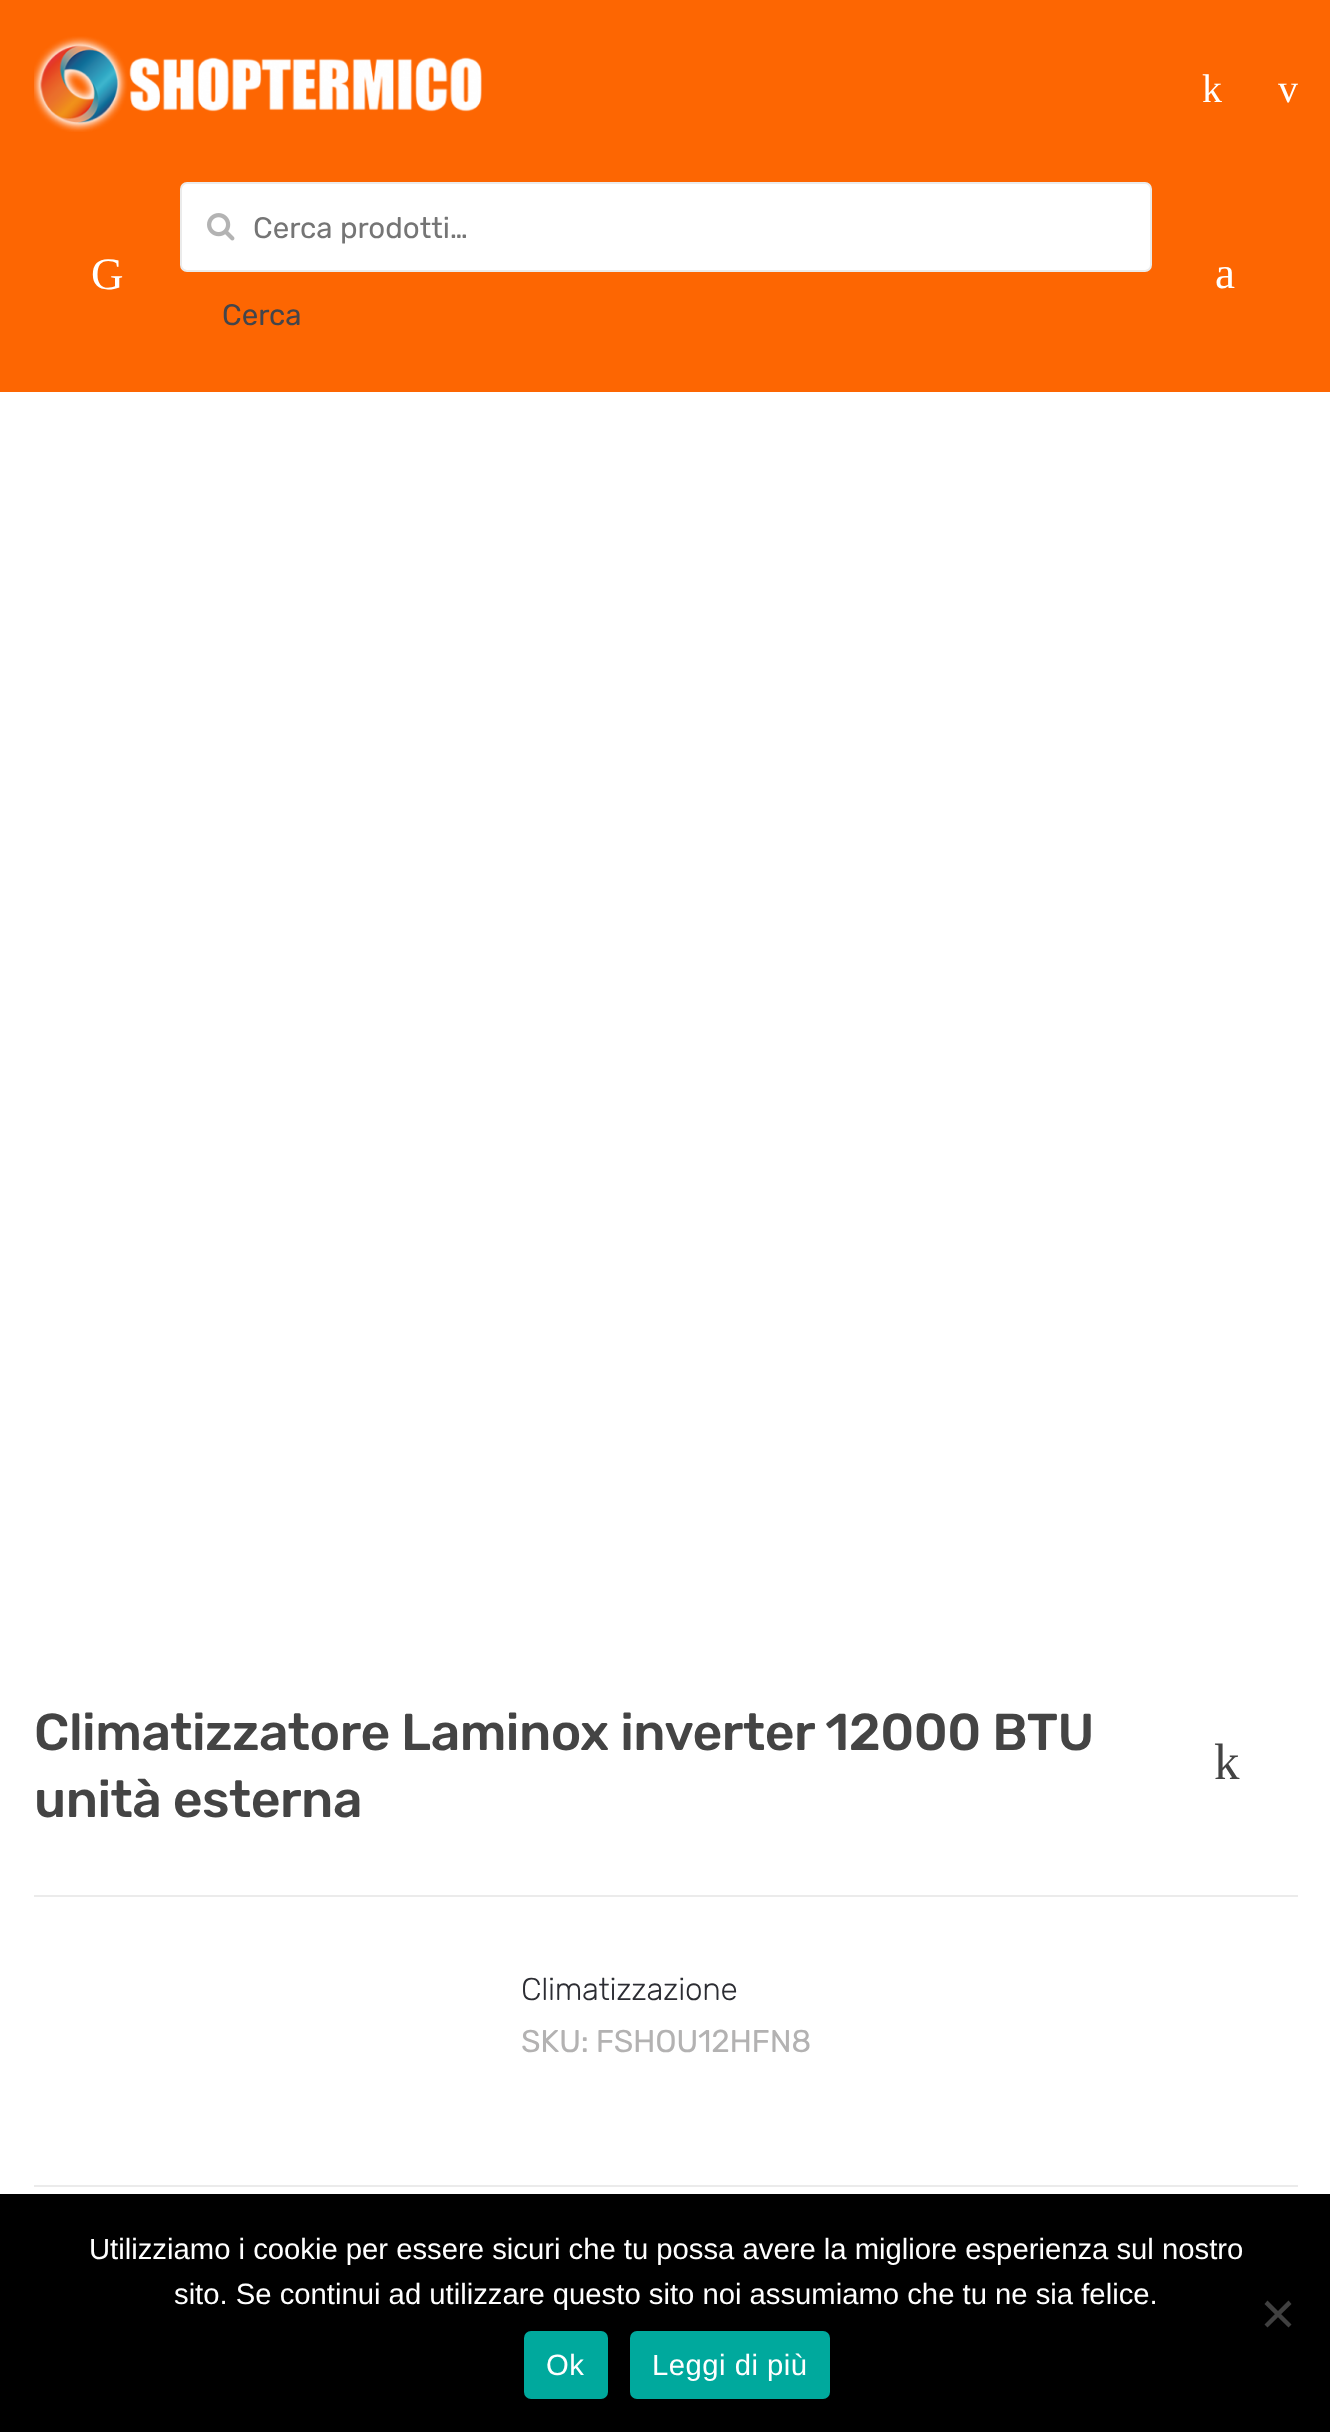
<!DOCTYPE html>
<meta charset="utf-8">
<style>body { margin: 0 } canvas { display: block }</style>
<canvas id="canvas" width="1330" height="2432"></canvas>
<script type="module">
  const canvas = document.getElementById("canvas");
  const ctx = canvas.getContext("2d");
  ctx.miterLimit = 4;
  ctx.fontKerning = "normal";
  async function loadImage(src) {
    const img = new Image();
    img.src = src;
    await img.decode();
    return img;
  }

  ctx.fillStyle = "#ffffff";
  ctx.fillRect(0, 0, 1330, 2432);
  ctx.fillStyle = "#fd6602";
  ctx.fillRect(0, 0, 1330, 392);
  ctx.drawImage(await loadImage("img1.png"), 34, 36, 448, 96);
  ctx.font = "40px Liberation Serif";
  ctx.fillStyle = "#ffffff";
  ctx.fillText("k", 1202, 102);
  ctx.fillText("v", 1278, 102);
  ctx.font = "45px Liberation Serif";
  ctx.fillText("G", 91, 289);
  ctx.beginPath();
  ctx.roundRect(181, 183, 970, 88, 6);
  ctx.fill();
  ctx.strokeStyle = "#ebebeb";
  ctx.lineWidth = 2;
  ctx.stroke();
  ctx.drawImage(await loadImage("img2.png"), 207, 213, 28, 28);
  ctx.font = "29.5px Rubik";
  ctx.fillStyle = "#757575";
  ctx.fillText("Cerca prodotti…", 253, 238);
  ctx.fillStyle = "#43454b";
  ctx.fillText("Cerca", 222, 325);
  ctx.font = "45px Liberation Serif";
  ctx.fillStyle = "#ffffff";
  ctx.fillText("a", 1215, 288);
  ctx.fillStyle = "#ebebeb";
  ctx.fillRect(34, 1895, 1264, 2);
  ctx.letterSpacing = "-0.5px";
  ctx.font = "500 51.75px Rubik";
  ctx.fillStyle = "#444444";
  ctx.fillText("Climatizzatore Laminox inverter 12000 BTU", 34, 1750);
  ctx.fillText("unità esterna", 34, 1817);
  ctx.letterSpacing = "0px";
  ctx.font = "51px Liberation Serif";
  ctx.fillText("k", 1214, 1779);
  ctx.fillStyle = "#ebebeb";
  ctx.fillRect(34, 2185, 1264, 2);
  ctx.letterSpacing = "-0.3px";
  ctx.font = "300 31.5px Rubik";
  ctx.fillStyle = "#2c2d33";
  ctx.fillText("Climatizzazione", 521, 2000);
  ctx.font = "31.5px Rubik";
  ctx.fillStyle = "#b3b2b2";
  ctx.fillText("SKU: FSHOU12HFN8", 521, 2052);
  ctx.fillStyle = "#000000";
  ctx.fillRect(0, 2194, 1330, 238);
  ctx.letterSpacing = "0px";
  ctx.font = "29.25px Liberation Sans";
  ctx.fillStyle = "#ffffff";
  ctx.fillText("Utilizziamo i cookie per essere sicuri che tu possa avere la migliore esperienza sul nostro", 89, 2259);
  ctx.fillText("sito. Se continui ad utilizzare questo sito noi assumiamo che tu ne sia felice.", 174, 2304);
  ctx.fillStyle = "#404040";
  ctx.beginPath();
  ctx.moveTo(1288.5, 2300.5);
  ctx.lineTo(1291.5, 2304);
  ctx.lineTo(1267.5, 2327.5);
  ctx.lineTo(1264.5, 2324.5);
  ctx.closePath();
  ctx.fill();
  ctx.beginPath();
  ctx.moveTo(1264.5, 2304);
  ctx.lineTo(1267.5, 2300.5);
  ctx.lineTo(1291.5, 2324.5);
  ctx.lineTo(1288.5, 2327.5);
  ctx.closePath();
  ctx.fill();
  ctx.fillStyle = "#00a99d";
  ctx.beginPath();
  ctx.roundRect(524, 2331, 84, 68, 7);
  ctx.fill();
  ctx.letterSpacing = "0.5px";
  ctx.fillStyle = "#ffffff";
  ctx.fillText("Ok", 546, 2375);
  ctx.fillStyle = "#00a99d";
  ctx.beginPath();
  ctx.roundRect(630, 2331, 200, 68, 7);
  ctx.fill();
  ctx.fillStyle = "#ffffff";
  ctx.fillText("Leggi di più", 652, 2375);
</script>
